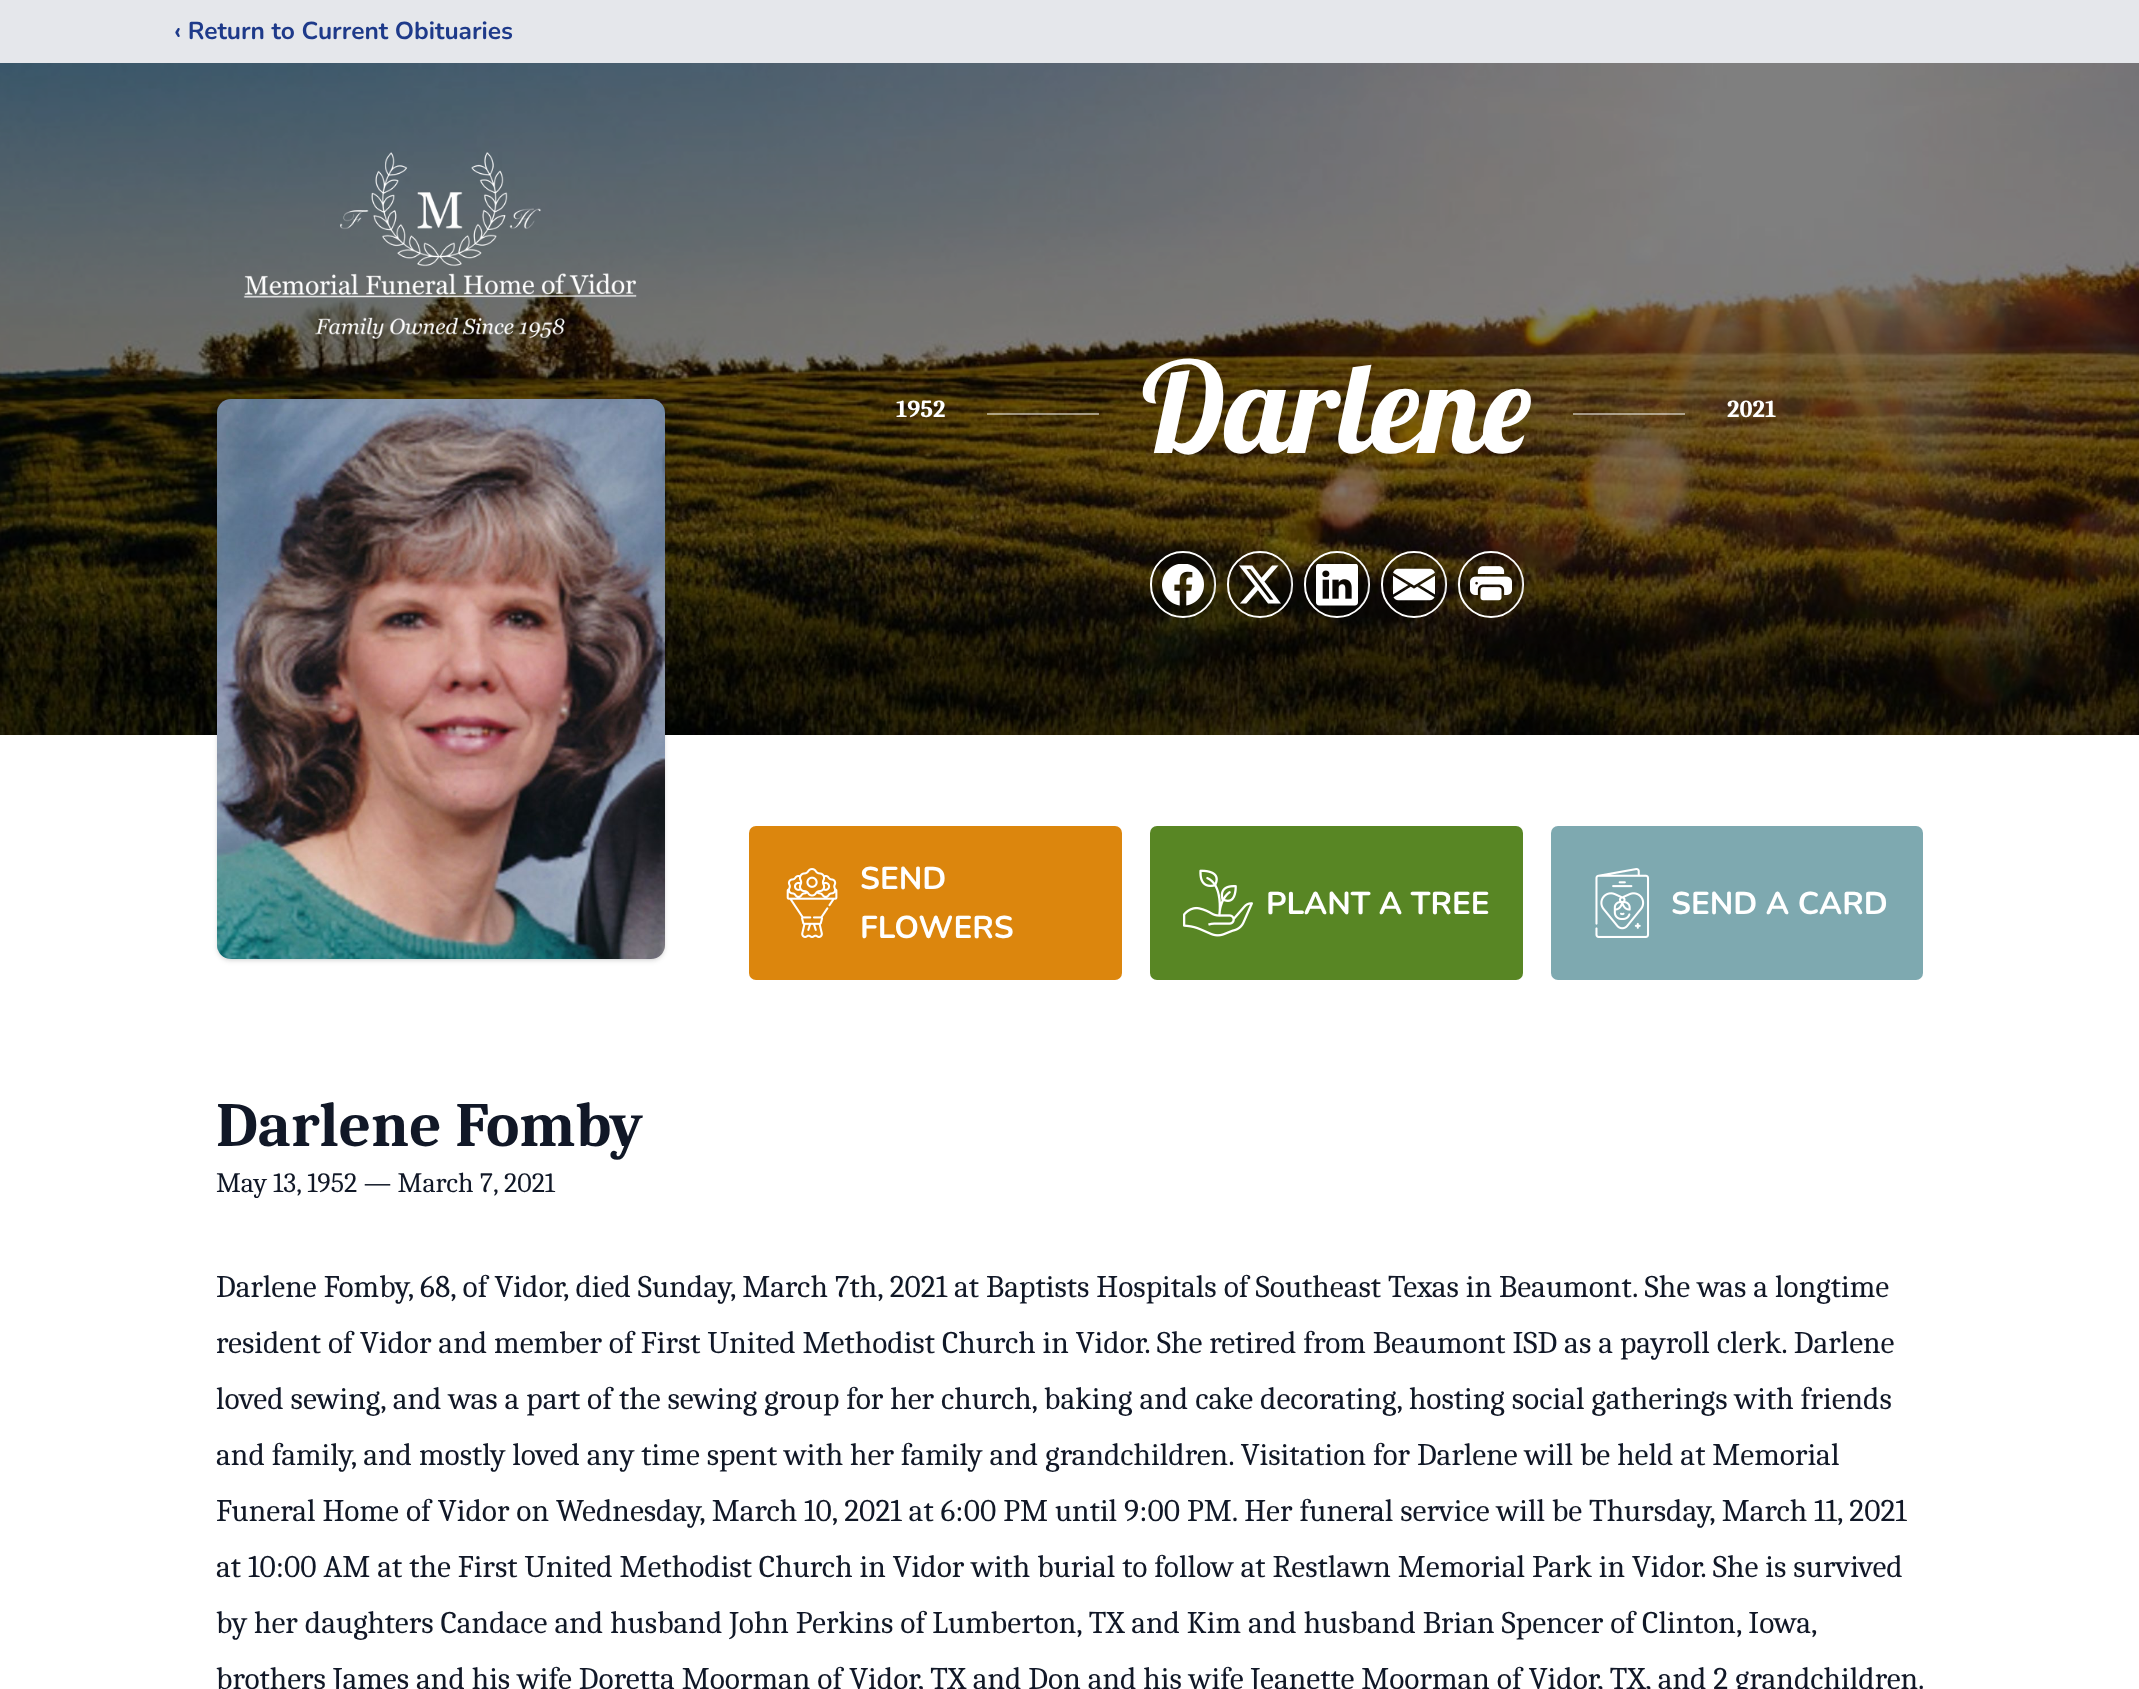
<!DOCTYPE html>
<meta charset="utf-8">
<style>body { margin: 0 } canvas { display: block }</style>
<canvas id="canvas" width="2139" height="1689"></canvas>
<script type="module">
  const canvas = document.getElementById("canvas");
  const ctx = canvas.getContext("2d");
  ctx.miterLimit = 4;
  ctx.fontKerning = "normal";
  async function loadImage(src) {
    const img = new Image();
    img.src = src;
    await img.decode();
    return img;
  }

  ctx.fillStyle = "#ffffff";
  ctx.fillRect(0, 0, 2139, 1689);
  ctx.fillStyle = "#e5e7eb";
  ctx.fillRect(0, 0, 2139, 63);
  ctx.font = "bold 24.5px Nunito";
  ctx.fillStyle = "#1e3a8a";
  ctx.fillText("‹ Return to Current Obituaries", 174, 39);
  ctx.drawImage(await loadImage("img1.png"), 0, 63, 2139, 672);
  ctx.drawImage(await loadImage("img2.png"), 243, 152, 394, 187);
  ctx.fillStyle = "rgba(0, 0, 0, 0.1)";
  ctx.filter = "blur(2px)";
  ctx.beginPath();
  ctx.roundRect(219, 403, 444, 556, 12);
  ctx.fill();
  ctx.filter = "none";
  ctx.filter = "blur(2.5px)";
  ctx.beginPath();
  ctx.roundRect(217, 401, 448, 560, 14);
  ctx.fill();
  ctx.filter = "none";
  ctx.drawImage(await loadImage("img3.png"), 217, 399, 448, 560);
  ctx.font = "bold 24.5px Caladea";
  ctx.fillStyle = "#ffffff";
  ctx.fillText("1952", 896, 417);
  ctx.fillStyle = "rgba(255, 255, 255, 0.5)";
  ctx.fillRect(987, 413, 112, 2);
  ctx.font = "126px Lobster";
  ctx.fillStyle = "#ffffff";
  ctx.fillText("Darlene", 1142, 453);
  ctx.fillStyle = "rgba(255, 255, 255, 0.5)";
  ctx.fillRect(1573, 413, 112, 2);
  ctx.font = "bold 24.5px Caladea";
  ctx.fillStyle = "#ffffff";
  ctx.fillText("2021", 1727, 417);
  ctx.beginPath();
  ctx.roundRect(1151, 552, 64, 65, 32);
  ctx.strokeStyle = "#ffffff";
  ctx.lineWidth = 2;
  ctx.stroke();
  ctx.fillStyle = "rgba(0, 0, 0, 0.2)";
  ctx.beginPath();
  ctx.arc(1183.5, 584.5, 31.5, 0, Math.PI * 2);
  ctx.fill();
  ctx.drawImage(await loadImage("img4.png"), 1162, 564, 42, 42);
  ctx.beginPath();
  ctx.roundRect(1228, 552, 64, 65, 32);
  ctx.stroke();
  ctx.beginPath();
  ctx.arc(1260.5, 584.5, 31.5, 0, Math.PI * 2);
  ctx.fill();
  ctx.drawImage(await loadImage("img5.png"), 1239, 565, 42, 39);
  ctx.beginPath();
  ctx.roundRect(1305, 552, 64, 65, 32);
  ctx.stroke();
  ctx.beginPath();
  ctx.arc(1337.5, 584.5, 31.5, 0, Math.PI * 2);
  ctx.fill();
  ctx.drawImage(await loadImage("img6.png"), 1316, 564, 42, 42);
  ctx.beginPath();
  ctx.roundRect(1382, 552, 64, 65, 32);
  ctx.stroke();
  ctx.beginPath();
  ctx.arc(1414.5, 584.5, 31.5, 0, Math.PI * 2);
  ctx.fill();
  ctx.drawImage(await loadImage("img7.png"), 1393, 568, 42, 33);
  ctx.beginPath();
  ctx.roundRect(1459, 552, 64, 65, 32);
  ctx.stroke();
  ctx.beginPath();
  ctx.arc(1491.5, 584.5, 31.5, 0, Math.PI * 2);
  ctx.fill();
  ctx.drawImage(await loadImage("img8.png"), 1470, 566, 42, 35);
  ctx.fillStyle = "#dc860d";
  ctx.beginPath();
  ctx.roundRect(749, 826, 373, 154, 7);
  ctx.fill();
  ctx.drawImage(await loadImage("img9.png"), 786, 868, 52, 70);
  ctx.font = "bold 31.5px Nunito";
  ctx.fillStyle = "#ffffff";
  ctx.fillText("SEND", 860, 889);
  ctx.fillText("FLOWERS", 860, 938);
  ctx.fillStyle = "#588624";
  ctx.beginPath();
  ctx.roundRect(1150, 826, 373, 154, 7);
  ctx.fill();
  ctx.drawImage(await loadImage("img10.png"), 1183, 869, 70, 68);
  ctx.fillStyle = "#ffffff";
  ctx.fillText("PLANT A TREE", 1266, 914);
  ctx.fillStyle = "#7ea9b0";
  ctx.beginPath();
  ctx.roundRect(1551, 826, 372, 154, 7);
  ctx.fill();
  ctx.drawImage(await loadImage("img11.png"), 1595, 868, 55, 70);
  ctx.fillStyle = "#ffffff";
  ctx.fillText("SEND A CARD", 1671, 914);
  ctx.font = "bold 63px Caladea";
  ctx.fillStyle = "#111827";
  ctx.fillText("Darlene Fomby", 216, 1146);
  ctx.font = "28px Caladea";
  ctx.fillText("May 13, 1952 — March 7, 2021", 216, 1192);
  ctx.font = "31.5px Caladea";
  ctx.fillText("Darlene Fomby, 68, of Vidor, died Sunday, March 7th, 2021 at Baptists Hospitals of Southeast Texas in Beaumont. She was a longtime", 216, 1297);
  ctx.fillText("resident of Vidor and member of First United Methodist Church in Vidor. She retired from Beaumont ISD as a payroll clerk. Darlene", 216, 1353);
  ctx.fillText("loved sewing, and was a part of the sewing group for her church, baking and cake decorating, hosting social gatherings with friends", 216, 1409);
  ctx.fillText("and family, and mostly loved any time spent with her family and grandchildren. Visitation for Darlene will be held at Memorial", 216, 1465);
  ctx.fillText("Funeral Home of Vidor on Wednesday, March 10, 2021 at 6:00 PM until 9:00 PM. Her funeral service will be Thursday, March 11, 2021", 216, 1521);
  ctx.fillText("at 10:00 AM at the First United Methodist Church in Vidor with burial to follow at Restlawn Memorial Park in Vidor. She is survived", 216, 1577);
  ctx.fillText("by her daughters Candace and husband John Perkins of Lumberton, TX and Kim and husband Brian Spencer of Clinton, Iowa,", 216, 1633);
  ctx.fillText("brothers James and his wife Doretta Moorman of Vidor, TX and Don and his wife Jeanette Moorman of Vidor, TX, and 2 grandchildren.", 216, 1689);
</script>
